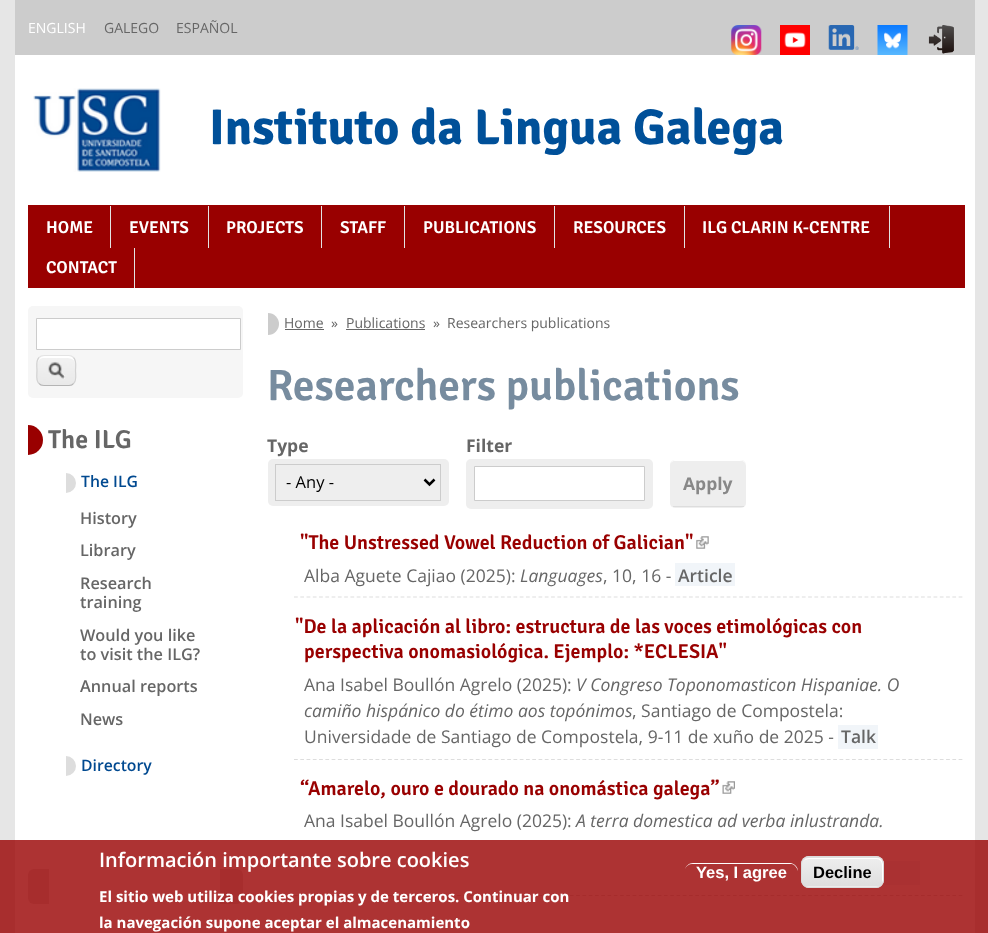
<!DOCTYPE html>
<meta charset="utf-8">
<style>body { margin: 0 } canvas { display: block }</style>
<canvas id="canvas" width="988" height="933"></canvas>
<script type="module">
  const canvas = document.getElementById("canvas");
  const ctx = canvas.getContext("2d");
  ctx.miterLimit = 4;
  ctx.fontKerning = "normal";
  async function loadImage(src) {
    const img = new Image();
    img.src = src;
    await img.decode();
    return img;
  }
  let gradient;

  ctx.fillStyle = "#e6e6e6";
  ctx.fillRect(0, 0, 988, 933);
  ctx.fillStyle = "#ffffff";
  ctx.fillRect(15, 55, 960, 878);
  ctx.fillStyle = "#cccccc";
  ctx.fillRect(15, 0, 960, 55);
  ctx.font = "14px Open Sans";
  ctx.fillStyle = "#ffffff";
  ctx.fillText("ENGLISH", 28, 33);
  ctx.fillStyle = "#666666";
  ctx.fillText("GALEGO", 104, 33);
  ctx.fillText("ESPAÑOL", 176, 33);
  ctx.drawImage(await loadImage("img1.png"), 731, 25, 31, 30);
  ctx.drawImage(await loadImage("img2.png"), 780, 25, 30, 30);
  ctx.drawImage(await loadImage("img3.png"), 828, 25, 31, 25);
  ctx.drawImage(await loadImage("img4.png"), 877, 25, 31, 30);
  ctx.drawImage(await loadImage("img5.png"), 928, 25, 26, 29);
  ctx.drawImage(await loadImage("img6.png"), 33, 88, 128, 84);
  ctx.font = "bold 50px Signika";
  ctx.fillStyle = "#005099";
  ctx.fillText("Instituto da Lingua Galega", 209, 144);
  ctx.fillStyle = "#990000";
  ctx.fillRect(28, 205, 937, 83);
  ctx.fillStyle = "#e3e3e3";
  ctx.fillRect(110, 206, 1, 42);
  ctx.font = "600 17.25px Signika";
  ctx.fillStyle = "#ffffff";
  ctx.fillText("HOME", 46, 233);
  ctx.fillStyle = "#e3e3e3";
  ctx.fillRect(208, 206, 1, 42);
  ctx.fillStyle = "#ffffff";
  ctx.fillText("EVENTS", 129, 233);
  ctx.fillStyle = "#e3e3e3";
  ctx.fillRect(321, 206, 1, 42);
  ctx.fillStyle = "#ffffff";
  ctx.fillText("PROJECTS", 226, 233);
  ctx.fillStyle = "#e3e3e3";
  ctx.fillRect(404, 206, 1, 42);
  ctx.fillStyle = "#ffffff";
  ctx.fillText("STAFF", 340, 233);
  ctx.fillStyle = "#e3e3e3";
  ctx.fillRect(554, 206, 1, 42);
  ctx.fillStyle = "#ffffff";
  ctx.fillText("PUBLICATIONS", 423, 233);
  ctx.fillStyle = "#e3e3e3";
  ctx.fillRect(684, 206, 1, 42);
  ctx.fillStyle = "#ffffff";
  ctx.fillText("RESOURCES", 573, 233);
  ctx.fillStyle = "#e3e3e3";
  ctx.fillRect(889, 206, 1, 42);
  ctx.fillStyle = "#ffffff";
  ctx.fillText("ILG CLARIN K-CENTRE", 702, 233);
  ctx.fillStyle = "#e3e3e3";
  ctx.fillRect(134, 248, 1, 40);
  ctx.fillStyle = "#ffffff";
  ctx.fillText("CONTACT", 46, 273);
  ctx.fillStyle = "#f6f6f6";
  ctx.beginPath();
  ctx.roundRect(28, 306, 215, 92, 5);
  ctx.fill();
  ctx.fillStyle = "#ffffff";
  ctx.beginPath();
  ctx.rect(36.5, 318.5, 204, 31);
  ctx.fill();
  ctx.strokeStyle = "#cccccc";
  ctx.stroke();
  ctx.drawImage(await loadImage("img7.png"), 36, 357, 40, 29);
  ctx.beginPath();
  ctx.moveTo(44, 358);
  ctx.lineTo(65, 358);
  ctx.bezierCurveTo(73.5, 358, 75, 360, 75, 365.5);
  ctx.bezierCurveTo(75, 357, 73.5, 356, 65, 356);
  ctx.lineTo(48, 356);
  ctx.bezierCurveTo(41.5, 356, 38, 356.5, 38, 364);
  ctx.bezierCurveTo(38, 360.5, 39.5, 358, 44, 358);
  ctx.closePath();
  ctx.moveTo(75, 378);
  ctx.lineTo(74.5, 381.5);
  ctx.bezierCurveTo(75, 380.5, 75, 379, 75, 378);
  ctx.closePath();
  ctx.fill("evenodd");
  ctx.beginPath();
  ctx.moveTo(39, 357.5);
  ctx.bezierCurveTo(40, 356.5, 42, 355.5, 44, 355.5);
  ctx.lineTo(69, 355.5);
  ctx.bezierCurveTo(70.5, 355.5, 72.5, 356.5, 73.5, 357.5);
  ctx.strokeStyle = "#e4e4e4";
  ctx.lineWidth = 1.2;
  ctx.stroke();
  ctx.beginPath();
  ctx.moveTo(73.5, 357.5);
  ctx.bezierCurveTo(77, 361, 75.5, 366.5, 75.5, 370.5);
  ctx.bezierCurveTo(75.5, 374.5, 77, 380.5, 73.5, 383.5);
  ctx.strokeStyle = "#d2d2d2";
  ctx.stroke();
  ctx.beginPath();
  ctx.moveTo(73.5, 383.5);
  ctx.bezierCurveTo(72.5, 385, 70.5, 385.5, 69, 385.5);
  ctx.lineTo(44, 385.5);
  ctx.bezierCurveTo(42, 385.5, 40, 385, 39, 383.5);
  ctx.strokeStyle = "#b4b4b4";
  ctx.stroke();
  ctx.beginPath();
  ctx.moveTo(39, 383.5);
  ctx.bezierCurveTo(35.5, 380.5, 37, 374.5, 37, 370.5);
  ctx.bezierCurveTo(37, 366.5, 35.5, 361, 39, 357.5);
  ctx.strokeStyle = "#d2d2d2";
  ctx.stroke();
  ctx.fillStyle = "#990000";
  ctx.beginPath();
  ctx.roundRect(28, 425, 15, 30, [0, 15, 15, 0]);
  ctx.fill();
  ctx.font = "600 26px Signika";
  ctx.fillStyle = "#666666";
  ctx.fillText("The ILG", 48, 448);
  ctx.fillStyle = "#dddddd";
  ctx.beginPath();
  ctx.roundRect(66, 473, 10, 20, [0, 10, 10, 0]);
  ctx.fill();
  ctx.font = "600 15.75px Open Sans";
  ctx.fillStyle = "#004990";
  ctx.fillText("The ILG", 81, 487);
  ctx.font = "600 16.25px Open Sans";
  ctx.fillStyle = "#666666";
  ctx.fillText("History", 80, 524);
  ctx.fillText("Library", 80, 556);
  ctx.fillText("Research", 80, 589);
  ctx.fillText("training", 80, 608);
  ctx.fillText("Would you like", 80, 641);
  ctx.fillText("to visit the ILG?", 80, 660);
  ctx.fillText("Annual reports", 80, 692);
  ctx.fillText("News", 80, 725);
  ctx.fillStyle = "#dddddd";
  ctx.beginPath();
  ctx.roundRect(66, 756, 10, 20, [0, 10, 10, 0]);
  ctx.fill();
  ctx.font = "600 15.75px Open Sans";
  ctx.fillStyle = "#004990";
  ctx.fillText("Directory", 81, 771);
  ctx.fillStyle = "#dfdfdf";
  ctx.beginPath();
  ctx.roundRect(28, 869, 21, 35, [6, 0, 0, 6]);
  ctx.fill();
  ctx.beginPath();
  ctx.roundRect(220, 869, 23, 35, [0, 6, 6, 0]);
  ctx.fill();
  ctx.fillStyle = "#cccccc";
  ctx.beginPath();
  ctx.roundRect(268, 313, 11, 22, [0, 11, 11, 0]);
  ctx.fill();
  ctx.font = "14px Open Sans";
  ctx.fillStyle = "#666666";
  ctx.fillText("Home", 284, 328);
  ctx.fillRect(285, 329, 39, 1);
  ctx.fillText("»", 331, 328);
  ctx.fillText("Publications", 346, 328);
  ctx.fillRect(346, 329, 79, 1);
  ctx.fillText("»", 433, 328);
  ctx.fillText("Researchers publications", 447, 328);
  ctx.font = "600 43.75px Signika";
  ctx.fillStyle = "#778c9f";
  ctx.fillText("Researchers publications", 267, 400);
  ctx.font = "bold 17.5px Open Sans";
  ctx.fillStyle = "#666666";
  ctx.fillText("Type", 267, 452);
  ctx.fillStyle = "#eeeeee";
  ctx.beginPath();
  ctx.roundRect(268, 459, 181, 47, 5);
  ctx.fill();
  ctx.strokeStyle = "#cccccc";
  ctx.lineWidth = 1;
  ctx.strokeRect(275.5, 464.5, 165, 36);
  ctx.beginPath();
  ctx.moveTo(424.5, 479.5);
  ctx.lineTo(429.5, 484.5);
  ctx.lineTo(434.5, 479.5);
  ctx.strokeStyle = "#000000";
  ctx.lineWidth = 2.5;
  ctx.stroke();
  ctx.font = "16.5px Open Sans";
  ctx.fillStyle = "#000000";
  ctx.fillText("- Any -", 286, 488);
  ctx.font = "bold 17.5px Open Sans";
  ctx.fillStyle = "#666666";
  ctx.fillText("Filter", 466, 452);
  ctx.fillStyle = "#eeeeee";
  ctx.beginPath();
  ctx.roundRect(466, 459, 187, 50, 5);
  ctx.fill();
  ctx.fillStyle = "#ffffff";
  ctx.beginPath();
  ctx.rect(474.5, 466.5, 170, 34);
  ctx.fill();
  ctx.strokeStyle = "#cccccc";
  ctx.lineWidth = 1;
  ctx.stroke();
  ctx.fillStyle = "#eeeeee";
  ctx.beginPath();
  ctx.roundRect(670, 460, 76, 48, 5);
  ctx.fill();
  ctx.fillStyle = "#ffffff";
  ctx.beginPath();
  ctx.moveTo(675, 461);
  ctx.lineTo(741, 461);
  ctx.bezierCurveTo(744, 461, 746, 463, 746, 466);
  ctx.lineTo(746, 504);
  ctx.lineTo(746, 464);
  ctx.bezierCurveTo(745, 458, 733, 460, 730, 460);
  ctx.lineTo(675, 460);
  ctx.bezierCurveTo(672, 460, 670, 463, 670, 466);
  ctx.bezierCurveTo(670, 463, 672, 461, 675, 461);
  ctx.closePath();
  ctx.fill();
  ctx.fillStyle = "#dddddd";
  ctx.fillRect(673, 506, 71, 1);
  ctx.fillStyle = "#888888";
  ctx.fillText("Apply", 683, 490);
  ctx.beginPath();
  ctx.moveTo(294, 597);
  ctx.lineTo(962.5, 597);
  ctx.strokeStyle = "#dddddd";
  ctx.lineWidth = 1.2;
  ctx.setLineDash([3.75, 2.52]);
  ctx.stroke();
  ctx.font = "600 20px Signika";
  ctx.fillStyle = "#990000";
  ctx.fillText("\"The Unstressed Vowel Reduction of Galician\"", 300, 549);
  ctx.drawImage(await loadImage("img8.png"), 696, 536, 13, 13);
  ctx.font = "17.5px Open Sans";
  ctx.fillStyle = "#666666";
  ctx.fillText("Alba Aguete Cajiao (2025):", 304, 582);
  ctx.font = "italic 17.5px Open Sans";
  ctx.fillText("Languages", 520, 582);
  ctx.font = "17.5px Open Sans";
  ctx.fillText(", 10, 16 -", 603, 582);
  ctx.fillStyle = "#f1f5f9";
  ctx.fillRect(675, 563, 60, 23);
  ctx.font = "600 17.5px Open Sans";
  ctx.fillStyle = "#666666";
  ctx.fillText("Article", 678, 582);
  ctx.beginPath();
  ctx.moveTo(294, 759.5);
  ctx.lineTo(962.5, 759.5);
  ctx.stroke();
  ctx.font = "600 20px Signika";
  ctx.fillStyle = "#990000";
  ctx.fillText("\"De la aplicación al libro: estructura de las voces etimológicas con", 295, 633);
  ctx.fillText("perspectiva onomasiológica. Ejemplo: *ECLESIA\"", 304, 658);
  ctx.font = "17.5px Open Sans";
  ctx.fillStyle = "#666666";
  ctx.fillText("Ana Isabel Boullón Agrelo (2025):", 304, 691);
  ctx.font = "italic 17.5px Open Sans";
  ctx.fillText("V Congreso Toponomasticon Hispaniae. O", 576, 691);
  ctx.fillText("camiño hispánico do étimo aos topónimos", 304, 717);
  ctx.font = "17.5px Open Sans";
  ctx.fillText(", Santiago de Compostela:", 632, 717);
  ctx.fillText("Universidade de Santiago de Compostela, 9-11 de xuño de 2025 -", 304, 743);
  ctx.fillStyle = "#f1f5f9";
  ctx.fillRect(838, 725, 40, 24);
  ctx.font = "600 17.5px Open Sans";
  ctx.fillStyle = "#666666";
  ctx.fillText("Talk", 841, 743);
  ctx.beginPath();
  ctx.moveTo(294, 895.5);
  ctx.lineTo(962.5, 895.5);
  ctx.stroke();
  ctx.font = "600 20px Signika";
  ctx.fillStyle = "#990000";
  ctx.fillText("“Amarelo, ouro e dourado na onomástica galega”", 300, 795);
  ctx.drawImage(await loadImage("img9.png"), 722, 781, 13, 13);
  ctx.font = "17.5px Open Sans";
  ctx.fillStyle = "#666666";
  ctx.fillText("Ana Isabel Boullón Agrelo (2025):", 304, 827);
  ctx.font = "italic 17.5px Open Sans";
  ctx.fillText("A terra domestica ad verba inlustranda.", 576, 827);
  ctx.fillStyle = "#f1f5f9";
  ctx.fillRect(882, 861, 38, 24);
  ctx.fillStyle = "rgba(153, 0, 0, 0.8)";
  ctx.fillRect(0, 840, 988, 93);
  ctx.font = "600 20px Open Sans";
  ctx.fillStyle = "#ffffff";
  ctx.fillText("Información importante sobre cookies", 99, 867);
  ctx.font = "bold 15px Open Sans";
  ctx.fillText("El sitio web utiliza cookies propias y de terceros. Continuar con", 99, 902);
  ctx.fillText("la navegación supone aceptar el almacenamiento", 99, 928);
  ctx.beginPath();
  ctx.moveTo(692, 864);
  ctx.lineTo(792, 864);
  ctx.bezierCurveTo(795, 865, 797, 868, 798, 871);
  ctx.lineTo(797, 876);
  ctx.lineTo(798, 871);
  ctx.bezierCurveTo(798, 867, 794, 863, 790, 863);
  ctx.lineTo(693, 863);
  ctx.bezierCurveTo(689, 863, 686, 866, 685, 869);
  ctx.bezierCurveTo(686, 866, 689, 864, 692, 864);
  ctx.closePath();
  ctx.fill();
  ctx.font = "bold 16.5px Liberation Sans";
  ctx.fillText("Yes, I agree", 696, 878);
  ctx.save();
  ctx.beginPath();
  ctx.roundRect(801, 856, 83, 32, 8);
  ctx.clip();
  gradient = ctx.createLinearGradient(843, 829, 843, 858);
  gradient.addColorStop(0.05, "#ededed");
  gradient.addColorStop(1, "#dfdfdf");
  ctx.fillStyle = gradient;
  ctx.fillRect(801, 856, 83, 2);
  gradient = ctx.createLinearGradient(843, 858, 843, 886);
  gradient.addColorStop(0.05, "#ededed");
  gradient.addColorStop(1, "#dfdfdf");
  ctx.fillStyle = gradient;
  ctx.fillRect(801, 858, 83, 28);
  gradient = ctx.createLinearGradient(843, 886, 843, 915);
  gradient.addColorStop(0.05, "#ededed");
  gradient.addColorStop(1, "#dfdfdf");
  ctx.fillStyle = gradient;
  ctx.fillRect(801, 886, 83, 2);
  ctx.restore();
  ctx.beginPath();
  ctx.moveTo(809, 859);
  ctx.lineTo(876, 859);
  ctx.bezierCurveTo(883, 859, 882, 866, 882, 870);
  ctx.lineTo(882, 884);
  ctx.bezierCurveTo(882, 883, 883, 881, 883, 880);
  ctx.lineTo(883, 864);
  ctx.bezierCurveTo(883, 861, 880, 858, 877, 858);
  ctx.lineTo(809, 858);
  ctx.bezierCurveTo(807, 858, 805, 859, 804, 861);
  ctx.bezierCurveTo(805, 860, 807, 859, 809, 859);
  ctx.closePath();
  ctx.fill();
  ctx.beginPath();
  ctx.roundRect(801.5, 856.5, 82, 31, 7.5);
  ctx.strokeStyle = "#dcdcdc";
  ctx.lineWidth = 1;
  ctx.setLineDash([]);
  ctx.stroke();
  ctx.fillStyle = "#000000";
  ctx.fillText("Decline", 813, 878);
</script>
